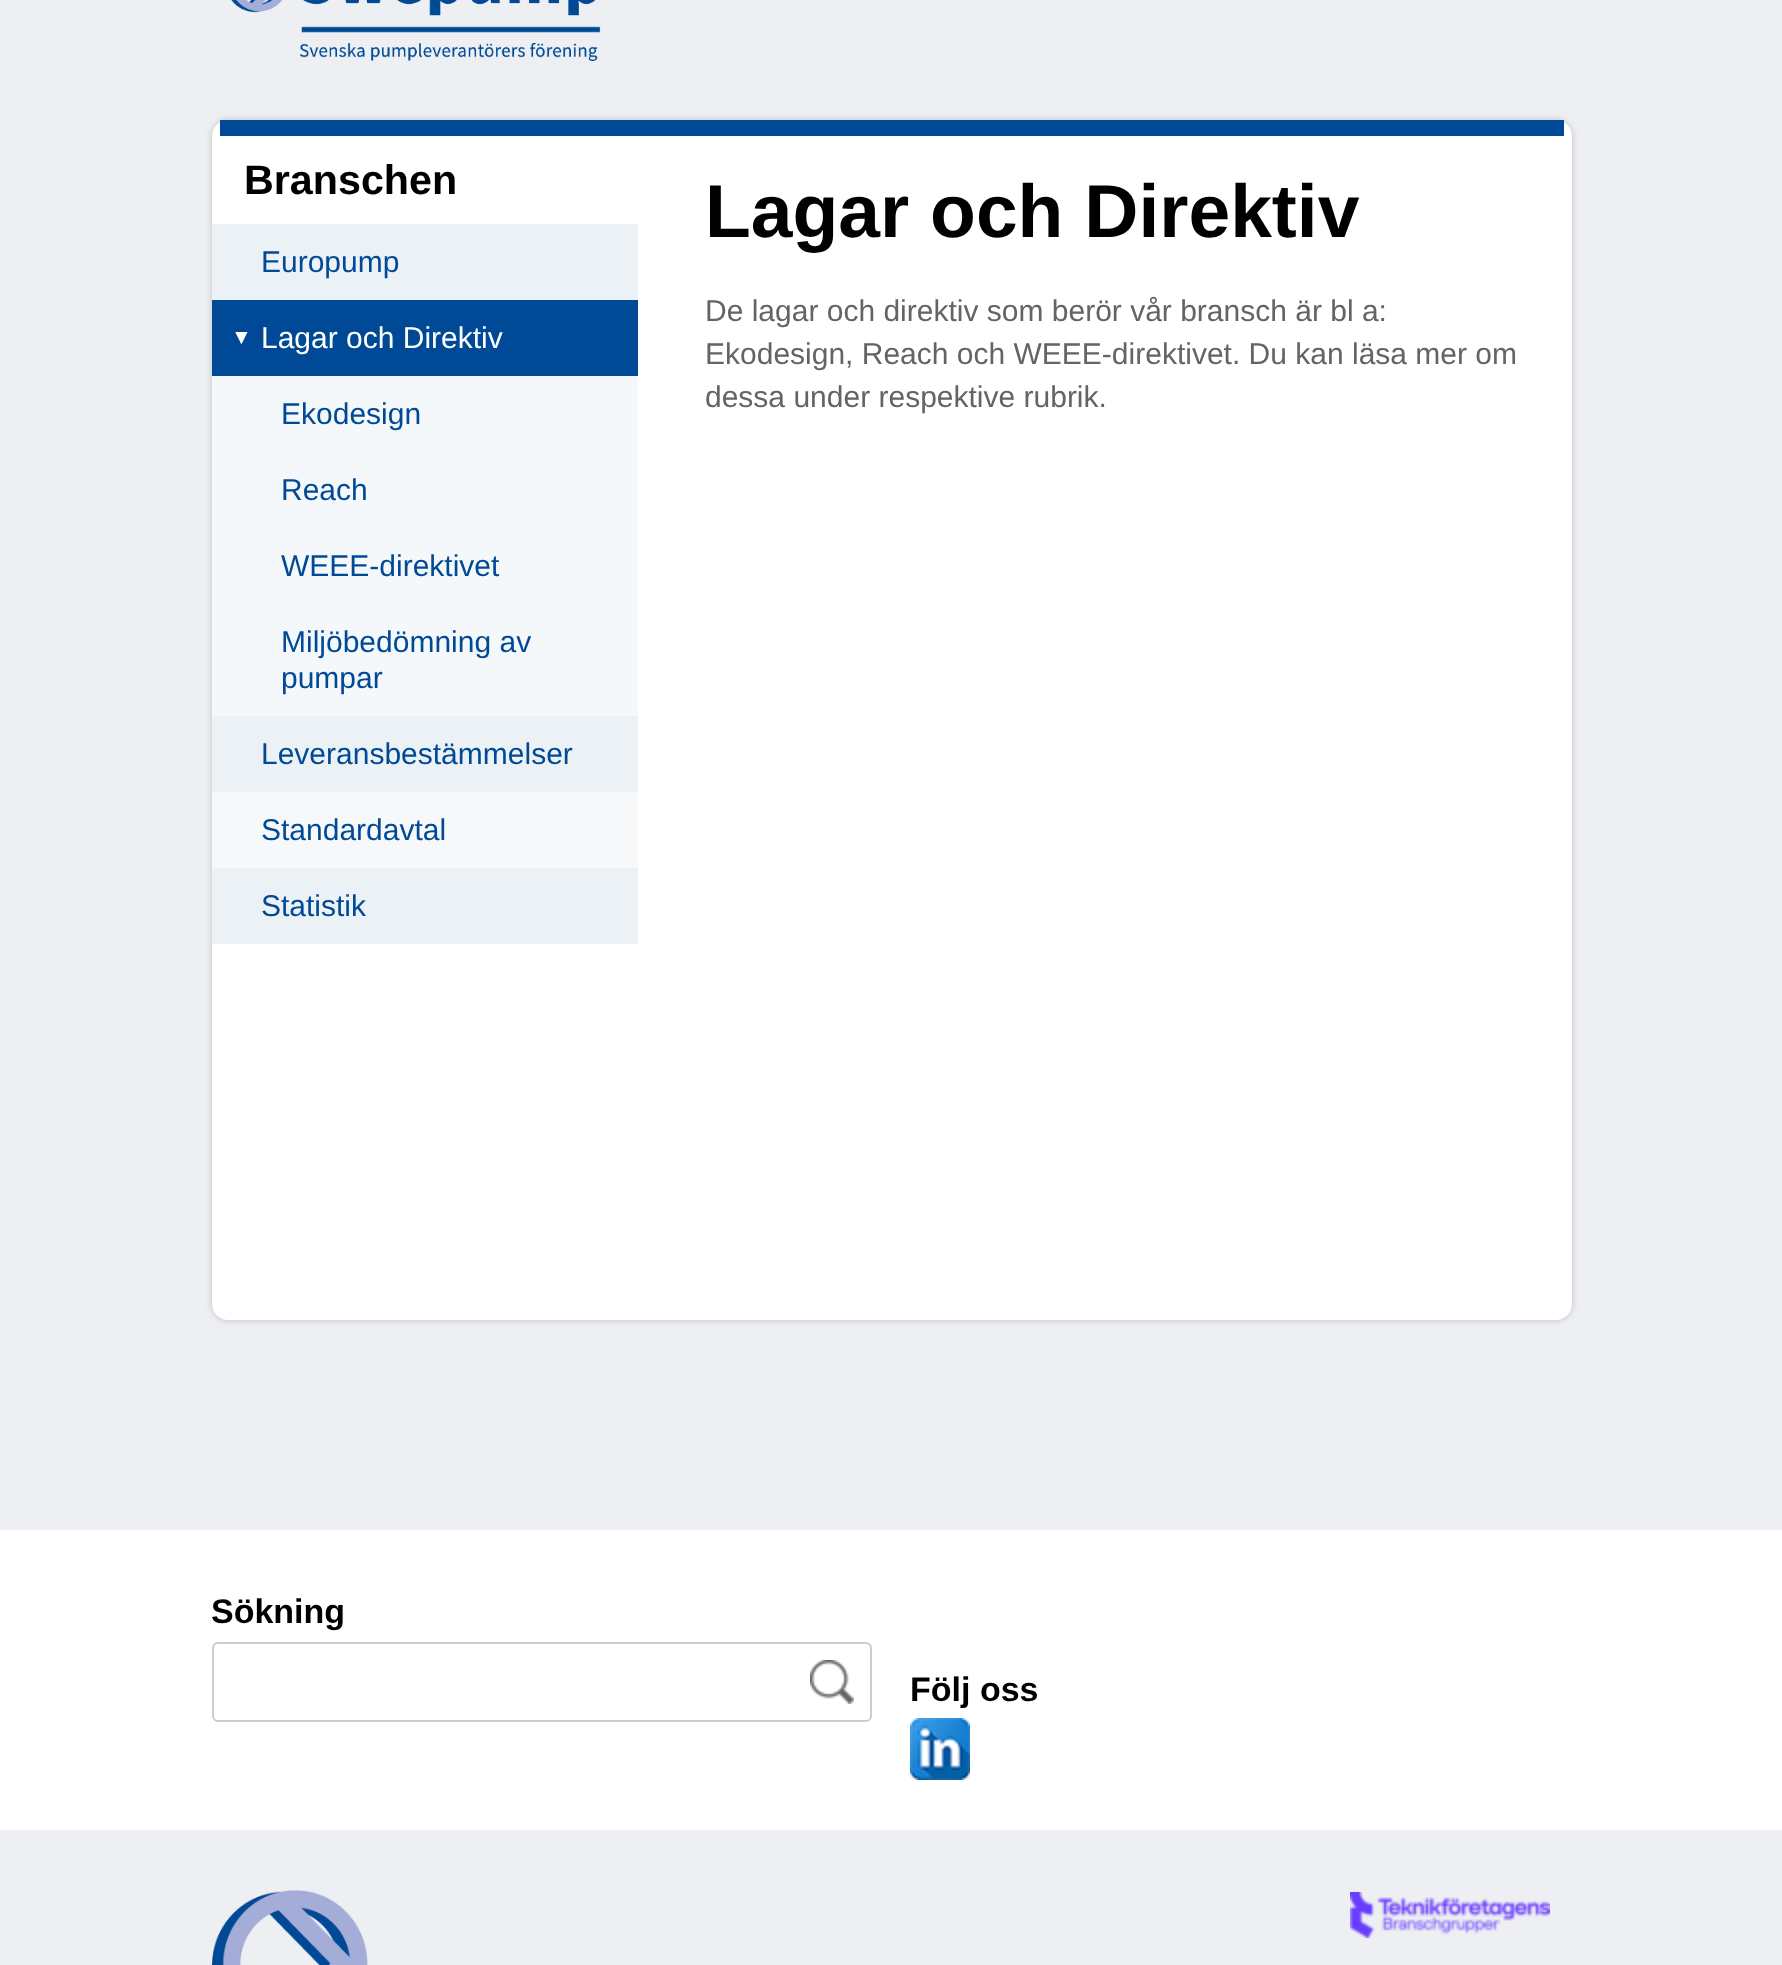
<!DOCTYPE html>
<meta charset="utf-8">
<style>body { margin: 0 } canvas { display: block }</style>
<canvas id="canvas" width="1782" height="1965"></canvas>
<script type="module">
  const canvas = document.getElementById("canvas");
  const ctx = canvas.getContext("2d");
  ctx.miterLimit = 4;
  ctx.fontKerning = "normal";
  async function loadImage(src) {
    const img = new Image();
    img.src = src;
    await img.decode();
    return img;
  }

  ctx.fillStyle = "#edeff3";
  ctx.fillRect(0, 0, 1782, 1965);
  ctx.drawImage(await loadImage("img1.png"), 231, 0, 370, 61);
  ctx.fillStyle = "rgba(0, 0, 0, 0.2)";
  ctx.filter = "blur(3px)";
  ctx.beginPath();
  ctx.roundRect(212, 120, 1360, 1200, 16);
  ctx.fill();
  ctx.filter = "none";
  ctx.fillStyle = "#ffffff";
  ctx.beginPath();
  ctx.roundRect(212, 120, 1360, 1200, 16);
  ctx.fill();
  ctx.fillStyle = "#004996";
  ctx.fillRect(220, 120, 1344, 16);
  ctx.font = "bold 41.25px Liberation Sans";
  ctx.fillStyle = "#000000";
  ctx.fillText("Branschen", 244, 194);
  ctx.fillStyle = "#ecf1f5";
  ctx.fillRect(212, 224, 426, 76);
  ctx.font = "30px Liberation Sans";
  ctx.fillStyle = "#004996";
  ctx.fillText("Europump", 261, 272);
  ctx.fillRect(212, 300, 426, 76);
  ctx.font = "21px Liberation Serif";
  ctx.fillStyle = "#ffffff";
  ctx.fillText("▼", 231, 344);
  ctx.font = "30px Liberation Sans";
  ctx.fillText("Lagar och Direktiv", 261, 348);
  ctx.fillStyle = "#f5f8fa";
  ctx.fillRect(212, 376, 426, 340);
  ctx.fillStyle = "#004996";
  ctx.fillText("Ekodesign", 281, 424);
  ctx.fillText("Reach", 281, 500);
  ctx.fillText("WEEE-direktivet", 281, 576);
  ctx.fillText("Miljöbedömning av", 281, 652);
  ctx.fillText("pumpar", 281, 688);
  ctx.fillStyle = "#ecf1f5";
  ctx.fillRect(212, 716, 426, 76);
  ctx.fillStyle = "#004996";
  ctx.fillText("Leveransbestämmelser", 261, 764);
  ctx.fillStyle = "#f6f8fa";
  ctx.fillRect(212, 792, 426, 76);
  ctx.fillStyle = "#004996";
  ctx.fillText("Standardavtal", 261, 840);
  ctx.fillStyle = "#ecf1f5";
  ctx.fillRect(212, 868, 426, 76);
  ctx.fillStyle = "#004996";
  ctx.fillText("Statistik", 261, 916);
  ctx.font = "bold 75px Liberation Sans";
  ctx.fillStyle = "#000000";
  ctx.fillText("Lagar och Direktiv", 705, 237);
  ctx.font = "30px Liberation Sans";
  ctx.fillStyle = "#646464";
  ctx.fillText("De lagar och direktiv som berör vår bransch är bl a:", 705, 321);
  ctx.fillText("Ekodesign, Reach och WEEE-direktivet. Du kan läsa mer om", 705, 364);
  ctx.fillText("dessa under respektive rubrik.", 705, 407);
  ctx.fillStyle = "#ffffff";
  ctx.fillRect(0, 1530, 1782, 300);
  ctx.font = "bold 34px Liberation Sans";
  ctx.fillStyle = "#000000";
  ctx.fillText("Sökning", 211, 1623);
  ctx.drawImage(await loadImage("img2.png"), 810, 1660, 44, 44);
  ctx.beginPath();
  ctx.roundRect(213, 1643, 658, 78, 5);
  ctx.strokeStyle = "#cccccc";
  ctx.lineWidth = 2;
  ctx.stroke();
  ctx.fillText("Följ oss", 910, 1701);
  ctx.drawImage(await loadImage("img3.png"), 910, 1718, 60, 62);
  ctx.drawImage(await loadImage("img4.png"), 212, 1890, 156, 75);
  ctx.drawImage(await loadImage("img5.png"), 1350, 1892, 200, 46);
</script>
